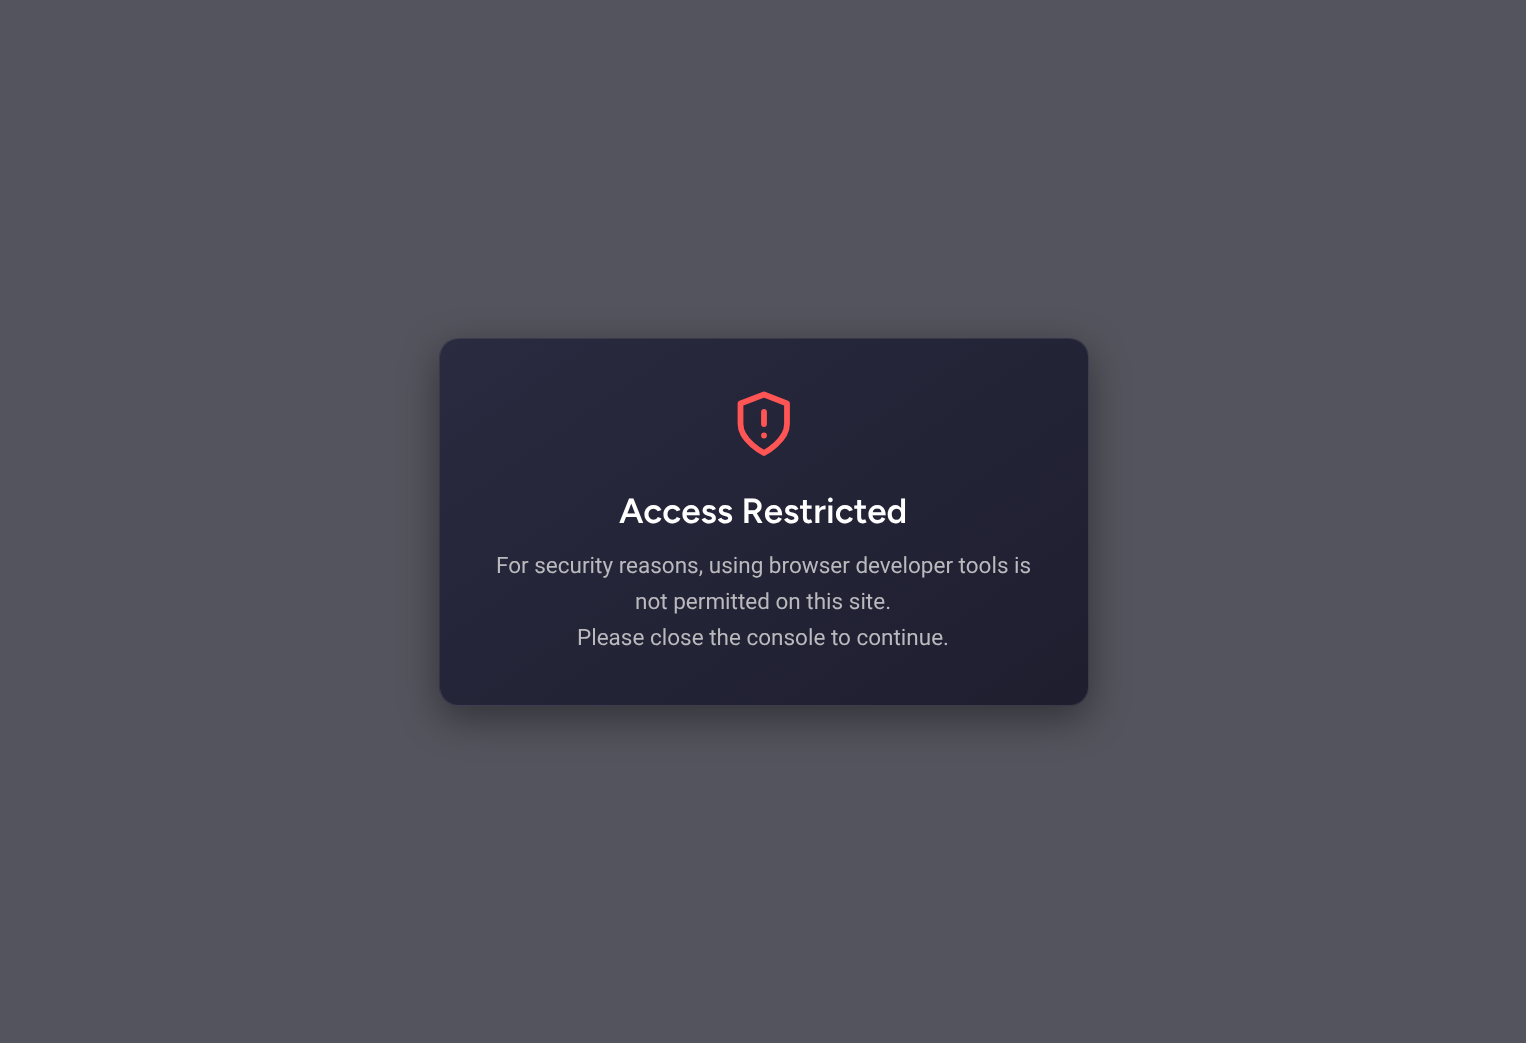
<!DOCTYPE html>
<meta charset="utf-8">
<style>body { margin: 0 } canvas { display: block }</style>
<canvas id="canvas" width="1526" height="1043"></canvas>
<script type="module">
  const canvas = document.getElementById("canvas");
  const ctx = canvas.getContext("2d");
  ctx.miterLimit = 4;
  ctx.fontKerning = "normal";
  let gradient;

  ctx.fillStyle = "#54545e";
  ctx.fillRect(0, 0, 1526, 1043);
  ctx.fillStyle = "rgba(0, 0, 0, 0.4)";
  ctx.filter = "blur(19px)";
  ctx.beginPath();
  ctx.roundRect(439, 350, 650, 369, 20);
  ctx.fill();
  ctx.filter = "none";
  ctx.save();
  ctx.beginPath();
  ctx.roundRect(439, 338, 650, 368, 20);
  ctx.clip();
  gradient = ctx.createLinearGradient(571, -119, 956, 431);
  gradient.addColorStop(0, "#2a2a40");
  gradient.addColorStop(1, "#1e1e2f");
  ctx.fillStyle = gradient;
  ctx.fillRect(453, 338, 622, 1);
  gradient = ctx.createLinearGradient(-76, 247, 309, 797);
  gradient.addColorStop(0, "#2a2a40");
  gradient.addColorStop(1, "#1e1e2f");
  ctx.fillStyle = gradient;
  ctx.fillRect(439, 352, 1, 340);
  gradient = ctx.createLinearGradient(571, 247, 956, 797);
  gradient.addColorStop(0, "#2a2a40");
  gradient.addColorStop(1, "#1e1e2f");
  ctx.fillStyle = gradient;
  ctx.fillRect(440, 339, 648, 366);
  gradient = ctx.createLinearGradient(1219, 247, 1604, 797);
  gradient.addColorStop(0, "#2a2a40");
  gradient.addColorStop(1, "#1e1e2f");
  ctx.fillStyle = gradient;
  ctx.fillRect(1088, 352, 1, 340);
  gradient = ctx.createLinearGradient(571, 613, 956, 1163);
  gradient.addColorStop(0, "#2a2a40");
  gradient.addColorStop(1, "#1e1e2f");
  ctx.fillStyle = gradient;
  ctx.fillRect(453, 705, 622, 1);
  ctx.restore();
  ctx.beginPath();
  ctx.roundRect(439.5, 338.5, 649, 367, 19.5);
  ctx.strokeStyle = "rgba(255, 255, 255, 0.1)";
  ctx.stroke();
  ctx.beginPath();
  ctx.moveTo(764, 453);
  ctx.bezierCurveTo(764, 453, 787, 441, 787, 424);
  ctx.lineTo(787, 403.5);
  ctx.lineTo(764, 394.5);
  ctx.lineTo(740.5, 403.5);
  ctx.lineTo(740.5, 424);
  ctx.bezierCurveTo(740.5, 441, 764, 453, 764, 453);
  ctx.closePath();
  ctx.strokeStyle = "#ff5555";
  ctx.lineWidth = 5.8;
  ctx.lineCap = "round";
  ctx.lineJoin = "round";
  ctx.stroke();
  ctx.beginPath();
  ctx.moveTo(764, 412);
  ctx.lineTo(764, 424);
  ctx.moveTo(764, 435.5);
  ctx.lineTo(764, 435.5);
  ctx.stroke();
  ctx.font = "600 35px Figtree";
  ctx.fillStyle = "#ffffff";
  ctx.fillText("Access Restricted", 619, 523);
  ctx.font = "22.5px Roboto";
  ctx.fillStyle = "#bababe";
  ctx.fillText("For security reasons, using browser developer tools is", 496, 573);
  ctx.fillText("not permitted on this site.", 635, 609);
  ctx.fillText("Please close the console to continue.", 577, 645);
</script>
